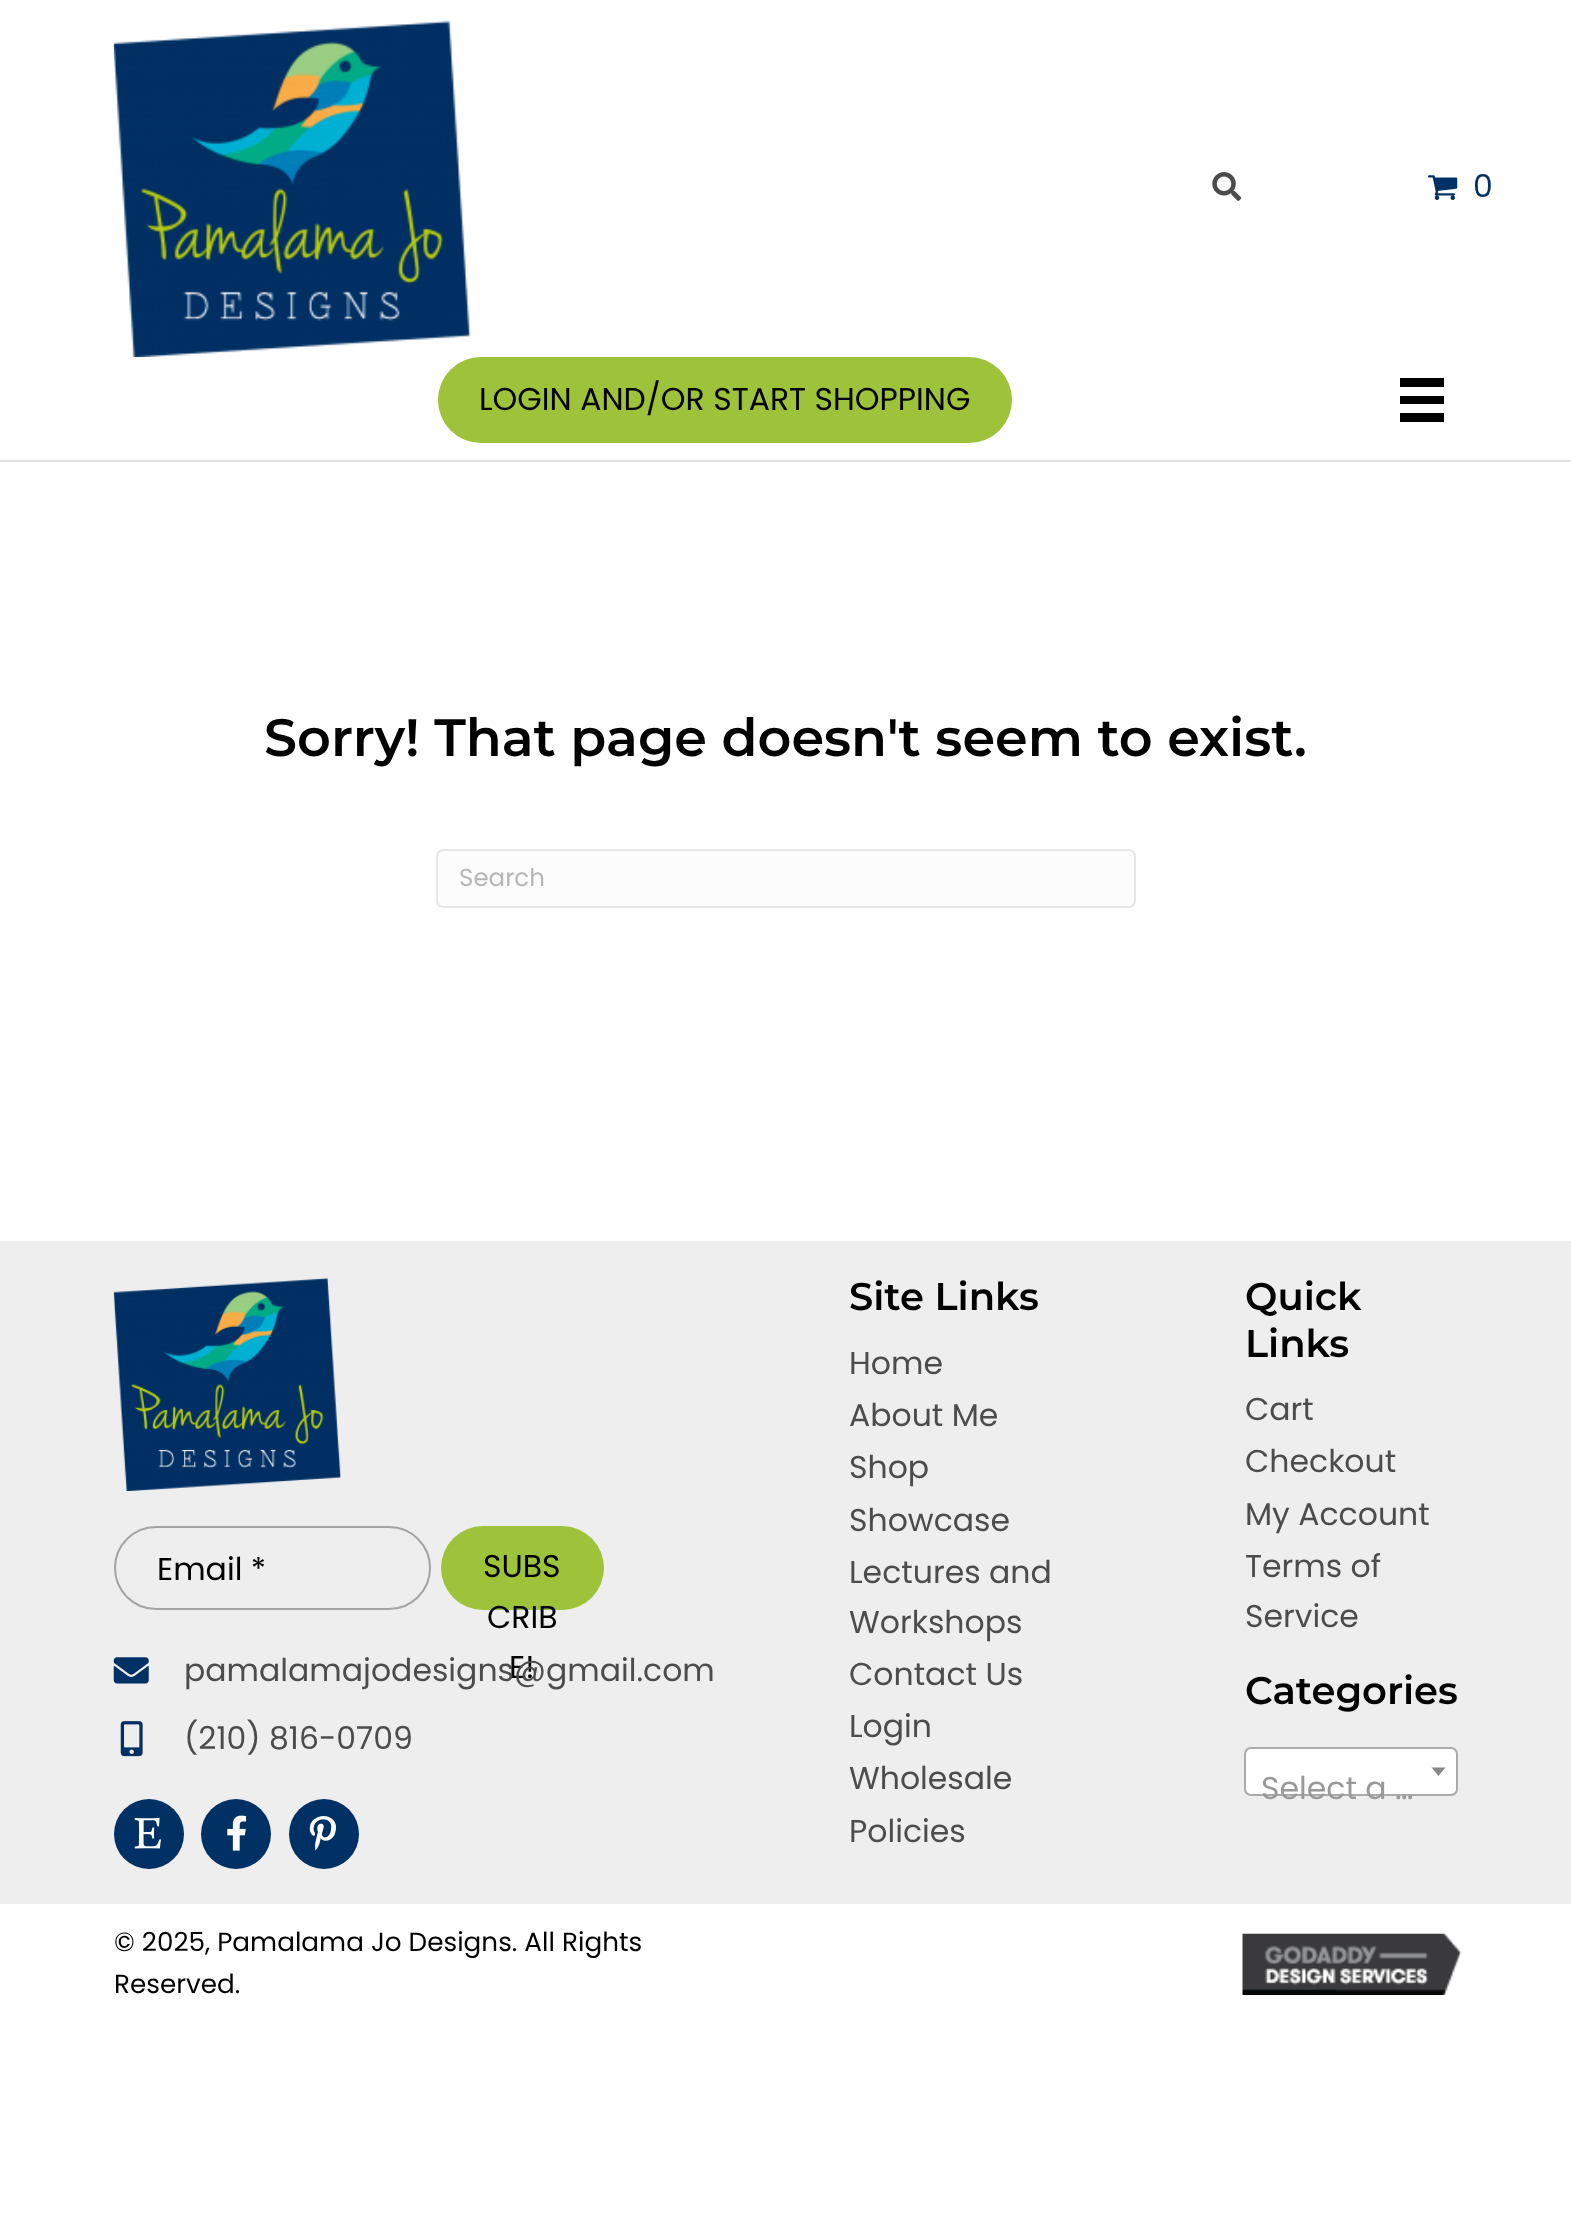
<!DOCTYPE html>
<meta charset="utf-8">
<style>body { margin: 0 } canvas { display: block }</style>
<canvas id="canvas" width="1571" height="2229"></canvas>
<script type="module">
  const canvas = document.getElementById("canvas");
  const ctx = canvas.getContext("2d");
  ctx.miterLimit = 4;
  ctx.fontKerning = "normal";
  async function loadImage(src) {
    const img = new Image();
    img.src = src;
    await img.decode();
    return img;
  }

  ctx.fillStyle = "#ffffff";
  ctx.fillRect(0, 0, 1571, 2229);
  ctx.fillStyle = "#e0e0e0";
  ctx.fillRect(0, 460, 1571, 2);
  ctx.drawImage(await loadImage("img1.png"), 113, 20, 358, 337);
  ctx.drawImage(await loadImage("img2.png"), 1212, 172, 30, 29);
  ctx.drawImage(await loadImage("img3.png"), 1428, 175, 30, 25);
  ctx.font = "31.5px Poppins";
  ctx.fillStyle = "#013064";
  ctx.fillText("0", 1473, 197);
  ctx.fillStyle = "#9ec239";
  ctx.beginPath();
  ctx.roundRect(438, 357, 574, 86, 43);
  ctx.fill();
  ctx.fillStyle = "#000000";
  ctx.fillText("LOGIN AND/OR START SHOPPING", 479, 410);
  ctx.fillRect(1400, 378, 44, 9);
  ctx.fillRect(1400, 396, 44, 8);
  ctx.fillRect(1400, 413, 44, 9);
  ctx.font = "100 52.5px Montserrat";
  ctx.fillText("Sorry! That page doesn't seem to exist.", 264, 756);
  ctx.fillStyle = "#fcfcfc";
  ctx.beginPath();
  ctx.roundRect(437, 850, 698, 57, 6);
  ctx.fill();
  ctx.strokeStyle = "#e6e6e6";
  ctx.lineWidth = 2;
  ctx.stroke();
  ctx.font = "24.5px Poppins";
  ctx.fillStyle = "#b6b6b6";
  ctx.fillText("Search", 459, 886);
  ctx.fillStyle = "#eeeeee";
  ctx.fillRect(0, 1241, 1571, 663);
  ctx.drawImage(await loadImage("img4.png"), 113, 1277, 228, 214);
  ctx.beginPath();
  ctx.roundRect(115, 1527, 315, 82, 41);
  ctx.strokeStyle = "#a3a3a3";
  ctx.stroke();
  ctx.font = "31.5px Poppins";
  ctx.fillStyle = "#000000";
  ctx.fillText("Email *", 157, 1580);
  ctx.fillStyle = "#9ec239";
  ctx.beginPath();
  ctx.roundRect(441, 1526, 163, 84, 42);
  ctx.fill();
  ctx.fillStyle = "#000000";
  ctx.fillText("SUBS", 483, 1577);
  ctx.fillText("CRIB", 487, 1628);
  ctx.fillText("E!", 509, 1678);
  ctx.drawImage(await loadImage("img5.png"), 113, 1657, 36, 27);
  ctx.fillStyle = "#4c4c4c";
  ctx.fillText("pamalamajodesigns@gmail.com", 184, 1681);
  ctx.drawImage(await loadImage("img6.png"), 120, 1721, 23, 36);
  ctx.fillText("(210) 816-0709", 184, 1749);
  ctx.fillStyle = "#013064";
  ctx.beginPath();
  ctx.arc(149, 1834, 35, 0, Math.PI * 2);
  ctx.fill();
  ctx.drawImage(await loadImage("img7.png"), 134, 1817, 27, 32);
  ctx.beginPath();
  ctx.arc(236, 1834, 35, 0, Math.PI * 2);
  ctx.fill();
  ctx.drawImage(await loadImage("img8.png"), 227, 1815, 20, 36);
  ctx.beginPath();
  ctx.arc(324, 1834, 35, 0, Math.PI * 2);
  ctx.fill();
  ctx.drawImage(await loadImage("img9.png"), 309, 1816, 27, 35);
  ctx.font = "100 38.5px Montserrat";
  ctx.fillStyle = "#000000";
  ctx.fillText("Site Links", 849, 1310);
  ctx.font = "31.5px Poppins";
  ctx.fillStyle = "#4c4c4c";
  ctx.fillText("Home", 849, 1374);
  ctx.fillText("About Me", 849, 1426);
  ctx.fillText("Shop", 849, 1478);
  ctx.fillText("Showcase", 849, 1531);
  ctx.fillText("Lectures and", 849, 1583);
  ctx.fillText("Workshops", 849, 1633);
  ctx.fillText("Contact Us", 849, 1685);
  ctx.fillText("Login", 849, 1737);
  ctx.fillText("Wholesale", 849, 1789);
  ctx.fillText("Policies", 849, 1842);
  ctx.font = "100 38.5px Montserrat";
  ctx.fillStyle = "#000000";
  ctx.fillText("Quick", 1245, 1310);
  ctx.fillText("Links", 1245, 1357);
  ctx.font = "31.5px Poppins";
  ctx.fillStyle = "#4c4c4c";
  ctx.fillText("Cart", 1245, 1420);
  ctx.fillText("Checkout", 1245, 1472);
  ctx.fillText("My Account", 1245, 1525);
  ctx.fillText("Terms of", 1245, 1577);
  ctx.fillText("Service", 1245, 1627);
  ctx.font = "100 38.5px Montserrat";
  ctx.fillStyle = "#000000";
  ctx.fillText("Categories", 1245, 1704);
  ctx.fillStyle = "#ffffff";
  ctx.beginPath();
  ctx.roundRect(1245, 1748, 212, 47, 6);
  ctx.fill();
  ctx.strokeStyle = "#aaaaaa";
  ctx.stroke();
  ctx.fillStyle = "#888888";
  ctx.beginPath();
  ctx.moveTo(1431.5, 1767.5);
  ctx.lineTo(1445.5, 1767.5);
  ctx.lineTo(1438.5, 1776);
  ctx.closePath();
  ctx.fill();
  ctx.font = "31.5px Poppins";
  ctx.fillStyle = "#999999";
  ctx.fillText("Select a …", 1261, 1799);
  ctx.font = "26.25px Poppins";
  ctx.fillStyle = "#000000";
  ctx.fillText("© 2025, Pamalama Jo Designs. All Rights", 114, 1951);
  ctx.fillText("Reserved.", 114, 1993);
  ctx.drawImage(await loadImage("img10.png"), 1242, 1933, 220, 62);
</script>
